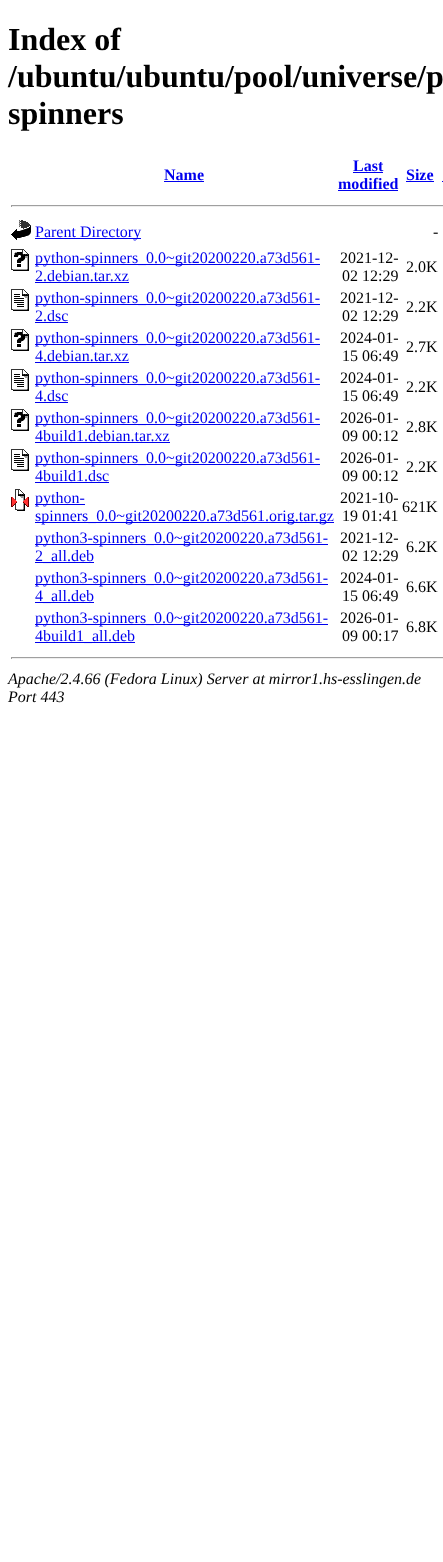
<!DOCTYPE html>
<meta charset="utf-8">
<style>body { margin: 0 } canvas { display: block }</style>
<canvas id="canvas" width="443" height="1562"></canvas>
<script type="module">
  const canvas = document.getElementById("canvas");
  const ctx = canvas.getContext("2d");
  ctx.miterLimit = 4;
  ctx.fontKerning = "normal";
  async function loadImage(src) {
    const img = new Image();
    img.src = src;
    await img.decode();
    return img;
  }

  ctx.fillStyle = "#ffffff";
  ctx.fillRect(0, 0, 443, 1562);
  ctx.font = "bold 32px Liberation Serif";
  ctx.fillStyle = "#000000";
  ctx.fillText("Index of", 8, 50);
  ctx.fillText("/ubuntu/ubuntu/pool/universe/p", 8, 87);
  ctx.fillText("spinners", 8, 124);
  ctx.font = "bold 16px Liberation Serif";
  ctx.fillStyle = "#0000ee";
  ctx.fillText("Name", 164, 180);
  ctx.fillRect(164, 181, 40, 1);
  ctx.fillText("Last", 353, 171);
  ctx.fillRect(353, 172, 30, 1);
  ctx.fillText("modified", 338, 189);
  ctx.fillRect(338, 190, 60, 1);
  ctx.fillText("Size", 406, 180);
  ctx.fillRect(406, 181, 28, 1);
  ctx.fillRect(442, 181, 1, 1);
  ctx.fillStyle = "#9f9f9f";
  ctx.fillRect(11, 205, 432, 1);
  ctx.fillStyle = "#eeeeee";
  ctx.fillRect(11, 206, 432, 1);
  ctx.fillStyle = "#9f9f9f";
  ctx.fillRect(11, 205, 1, 2);
  ctx.drawImage(await loadImage("img1.png"), 11, 220, 20, 20);
  ctx.fillStyle = "#0000ee";
  ctx.fillRect(35, 238, 106, 1);
  ctx.font = "16px Liberation Serif";
  ctx.fillText("Parent Directory", 35, 237);
  ctx.fillStyle = "#000000";
  ctx.fillText("-", 433, 237);
  ctx.drawImage(await loadImage("img2.png"), 11, 249, 18, 22);
  ctx.fillStyle = "#0000ee";
  ctx.fillRect(35, 264, 285, 1);
  ctx.fillText("python-spinners_0.0~git20200220.a73d561-", 35, 263);
  ctx.fillText("2.debian.tar.xz", 35, 281);
  ctx.fillRect(35, 282, 94, 1);
  ctx.fillStyle = "#000000";
  ctx.fillText("2021-12-", 340, 263);
  ctx.fillText("02 12:29", 342, 281);
  ctx.fillText("2.0K", 406, 272);
  ctx.drawImage(await loadImage("img3.png"), 11, 289, 18, 22);
  ctx.fillStyle = "#0000ee";
  ctx.fillRect(35, 304, 285, 1);
  ctx.fillText("python-spinners_0.0~git20200220.a73d561-", 35, 303);
  ctx.fillText("2.dsc", 35, 321);
  ctx.fillRect(35, 322, 33, 1);
  ctx.fillStyle = "#000000";
  ctx.fillText("2021-12-", 340, 303);
  ctx.fillText("02 12:29", 342, 321);
  ctx.fillText("2.2K", 406, 312);
  ctx.drawImage(await loadImage("img2.png"), 11, 329, 18, 22);
  ctx.fillStyle = "#0000ee";
  ctx.fillRect(35, 344, 285, 1);
  ctx.fillText("python-spinners_0.0~git20200220.a73d561-", 35, 343);
  ctx.fillText("4.debian.tar.xz", 35, 361);
  ctx.fillRect(35, 362, 94, 1);
  ctx.fillStyle = "#000000";
  ctx.fillText("2024-01-", 340, 343);
  ctx.fillText("15 06:49", 342, 361);
  ctx.fillText("2.7K", 406, 352);
  ctx.drawImage(await loadImage("img3.png"), 11, 369, 18, 22);
  ctx.fillStyle = "#0000ee";
  ctx.fillRect(35, 384, 285, 1);
  ctx.fillText("python-spinners_0.0~git20200220.a73d561-", 35, 383);
  ctx.fillText("4.dsc", 35, 401);
  ctx.fillRect(35, 402, 33, 1);
  ctx.fillStyle = "#000000";
  ctx.fillText("2024-01-", 340, 383);
  ctx.fillText("15 06:49", 342, 401);
  ctx.fillText("2.2K", 406, 392);
  ctx.drawImage(await loadImage("img2.png"), 11, 409, 18, 22);
  ctx.fillStyle = "#0000ee";
  ctx.fillRect(35, 424, 285, 1);
  ctx.fillText("python-spinners_0.0~git20200220.a73d561-", 35, 423);
  ctx.fillText("4build1.debian.tar.xz", 35, 441);
  ctx.fillRect(35, 442, 135, 1);
  ctx.fillStyle = "#000000";
  ctx.fillText("2026-01-", 340, 423);
  ctx.fillText("09 00:12", 342, 441);
  ctx.fillText("2.8K", 406, 432);
  ctx.drawImage(await loadImage("img3.png"), 11, 449, 18, 22);
  ctx.fillStyle = "#0000ee";
  ctx.fillRect(35, 464, 285, 1);
  ctx.fillText("python-spinners_0.0~git20200220.a73d561-", 35, 463);
  ctx.fillText("4build1.dsc", 35, 481);
  ctx.fillRect(35, 482, 74, 1);
  ctx.fillStyle = "#000000";
  ctx.fillText("2026-01-", 340, 463);
  ctx.fillText("09 00:12", 342, 481);
  ctx.fillText("2.2K", 406, 472);
  ctx.drawImage(await loadImage("img4.png"), 11, 489, 18, 22);
  ctx.fillStyle = "#0000ee";
  ctx.fillRect(35, 504, 50, 1);
  ctx.fillText("python-", 35, 503);
  ctx.fillRect(35, 522, 299, 1);
  ctx.fillText("spinners_0.0~git20200220.a73d561.orig.tar.gz", 35, 521);
  ctx.fillStyle = "#000000";
  ctx.fillText("2021-10-", 340, 503);
  ctx.fillText("19 01:41", 342, 521);
  ctx.fillText("621K", 402, 512);
  ctx.fillStyle = "#0000ee";
  ctx.fillRect(35, 544, 293, 1);
  ctx.fillText("python3-spinners_0.0~git20200220.a73d561-", 35, 543);
  ctx.fillRect(35, 562, 59, 1);
  ctx.fillText("2_all.deb", 35, 561);
  ctx.fillStyle = "#000000";
  ctx.fillText("2021-12-", 340, 543);
  ctx.fillText("02 12:29", 342, 561);
  ctx.fillText("6.2K", 406, 552);
  ctx.fillStyle = "#0000ee";
  ctx.fillRect(35, 584, 293, 1);
  ctx.fillText("python3-spinners_0.0~git20200220.a73d561-", 35, 583);
  ctx.fillRect(35, 602, 59, 1);
  ctx.fillText("4_all.deb", 35, 601);
  ctx.fillStyle = "#000000";
  ctx.fillText("2024-01-", 340, 583);
  ctx.fillText("15 06:49", 342, 601);
  ctx.fillText("6.6K", 406, 592);
  ctx.fillStyle = "#0000ee";
  ctx.fillRect(35, 624, 293, 1);
  ctx.fillText("python3-spinners_0.0~git20200220.a73d561-", 35, 623);
  ctx.fillRect(35, 642, 100, 1);
  ctx.fillText("4build1_all.deb", 35, 641);
  ctx.fillStyle = "#000000";
  ctx.fillText("2026-01-", 340, 623);
  ctx.fillText("09 00:17", 342, 641);
  ctx.fillText("6.8K", 406, 632);
  ctx.fillStyle = "#9f9f9f";
  ctx.fillRect(11, 657, 432, 1);
  ctx.fillStyle = "#eeeeee";
  ctx.fillRect(11, 658, 432, 1);
  ctx.fillStyle = "#9f9f9f";
  ctx.fillRect(11, 657, 1, 2);
  ctx.font = "italic 16px Liberation Serif";
  ctx.fillStyle = "#000000";
  ctx.fillText("Apache/2.4.66 (Fedora Linux) Server at mirror1.hs-esslingen.de", 8, 684);
  ctx.fillText("Port 443", 8, 702);
</script>
